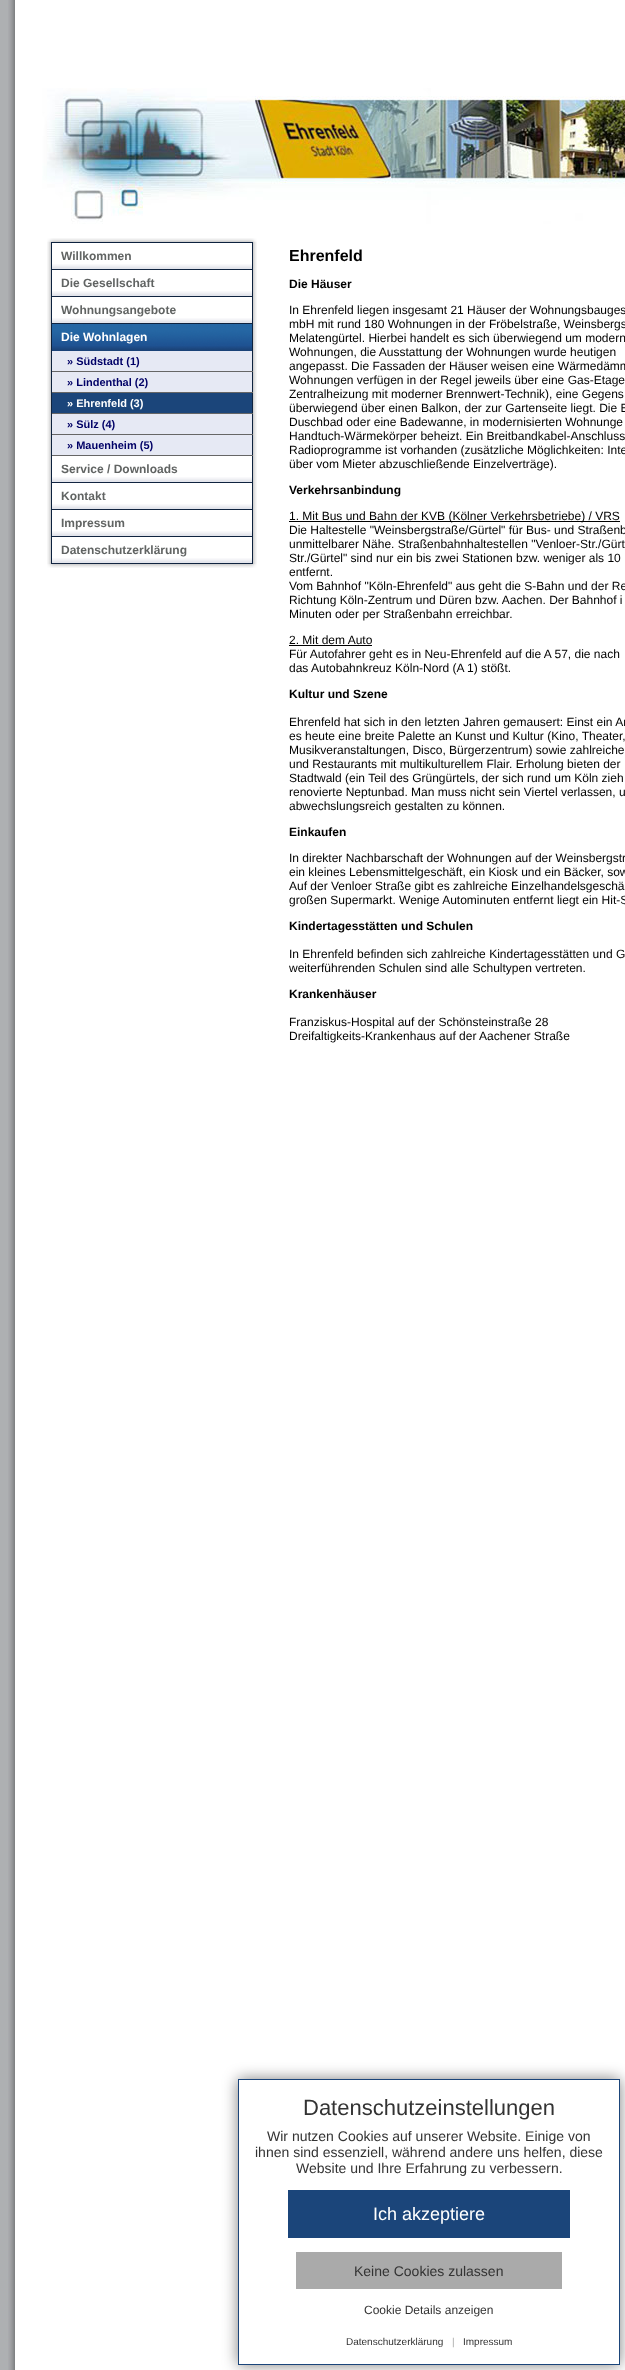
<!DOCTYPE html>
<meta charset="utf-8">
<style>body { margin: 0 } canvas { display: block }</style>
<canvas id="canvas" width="625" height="2370"></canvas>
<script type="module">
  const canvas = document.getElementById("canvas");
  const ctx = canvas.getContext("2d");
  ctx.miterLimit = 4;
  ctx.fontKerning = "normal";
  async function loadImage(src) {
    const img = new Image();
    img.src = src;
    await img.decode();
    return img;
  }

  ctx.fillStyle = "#aeb0b2";
  ctx.fillRect(0, 0, 625, 2370);
  ctx.drawImage(await loadImage("img1.png"), 8, 0, 7, 2370);
  ctx.fillStyle = "#ffffff";
  ctx.fillRect(15, 0, 610, 2370);
  ctx.drawImage(await loadImage("img2.png"), 42, 88, 583, 136);
  ctx.drawImage(await loadImage("img3.png"), 47, 238, 210, 4);
  ctx.drawImage(await loadImage("img4.png"), 47, 242, 4, 322);
  ctx.fillStyle = "#0d223e";
  ctx.fillRect(51, 242, 202, 1);
  ctx.drawImage(await loadImage("img5.png"), 51, 243, 202, 27);
  ctx.font = "bold 12px Liberation Sans";
  ctx.fillStyle = "#616463";
  ctx.fillText("Willkommen", 61, 260);
  ctx.drawImage(await loadImage("img5.png"), 51, 270, 202, 27);
  ctx.fillText("Die Gesellschaft", 61, 287);
  ctx.drawImage(await loadImage("img5.png"), 51, 297, 202, 27);
  ctx.fillText("Wohnungsangebote", 61, 314);
  ctx.drawImage(await loadImage("img6.png"), 51, 324, 202, 27);
  ctx.fillStyle = "#ffffff";
  ctx.fillText("Die Wohnlagen", 61, 341);
  ctx.fillStyle = "#e6e9f4";
  ctx.fillRect(52, 351, 200, 20);
  ctx.fillStyle = "#0e233f";
  ctx.fillRect(252, 351, 1, 105);
  ctx.fillStyle = "#666666";
  ctx.fillRect(51, 371, 202, 1);
  ctx.fillStyle = "#0e233f";
  ctx.fillRect(51, 351, 1, 21);
  ctx.font = "bold 11px Liberation Sans";
  ctx.fillStyle = "#000066";
  ctx.fillText("» Südstadt (1)", 67, 365);
  ctx.fillStyle = "#e6e9f4";
  ctx.fillRect(52, 372, 200, 20);
  ctx.fillStyle = "#666666";
  ctx.fillRect(51, 392, 202, 1);
  ctx.fillStyle = "#0e233f";
  ctx.fillRect(51, 372, 1, 21);
  ctx.fillStyle = "#000066";
  ctx.fillText("» Lindenthal (2)", 67, 386);
  ctx.fillStyle = "#1b457a";
  ctx.fillRect(52, 393, 200, 20);
  ctx.fillStyle = "#666666";
  ctx.fillRect(51, 413, 202, 1);
  ctx.fillStyle = "#0e233f";
  ctx.fillRect(51, 393, 1, 21);
  ctx.fillStyle = "#ffffff";
  ctx.fillText("» Ehrenfeld (3)", 67, 407);
  ctx.fillStyle = "#e6e9f4";
  ctx.fillRect(52, 414, 200, 20);
  ctx.fillStyle = "#666666";
  ctx.fillRect(51, 434, 202, 1);
  ctx.fillStyle = "#0e233f";
  ctx.fillRect(51, 414, 1, 21);
  ctx.fillStyle = "#000066";
  ctx.fillText("» Sülz (4)", 67, 428);
  ctx.fillStyle = "#e6e9f4";
  ctx.fillRect(52, 435, 200, 20);
  ctx.fillStyle = "#666666";
  ctx.fillRect(51, 455, 202, 1);
  ctx.fillStyle = "#0e233f";
  ctx.fillRect(51, 435, 1, 21);
  ctx.fillStyle = "#000066";
  ctx.fillText("» Mauenheim (5)", 67, 449);
  ctx.drawImage(await loadImage("img5.png"), 51, 456, 202, 27);
  ctx.font = "bold 12px Liberation Sans";
  ctx.fillStyle = "#616463";
  ctx.fillText("Service / Downloads", 61, 473);
  ctx.drawImage(await loadImage("img5.png"), 51, 483, 202, 27);
  ctx.fillText("Kontakt", 61, 500);
  ctx.drawImage(await loadImage("img5.png"), 51, 510, 202, 27);
  ctx.fillText("Impressum", 61, 527);
  ctx.drawImage(await loadImage("img5.png"), 51, 537, 202, 27);
  ctx.fillText("Datenschutzerklärung", 61, 554);
  ctx.drawImage(await loadImage("img7.png"), 253, 242, 4, 322);
  ctx.drawImage(await loadImage("img8.png"), 47, 564, 210, 4);
  ctx.font = "bold 16px Liberation Sans";
  ctx.fillStyle = "#000000";
  ctx.fillText("Ehrenfeld", 289, 261);
  ctx.font = "bold 12px Liberation Sans";
  ctx.fillText("Die Häuser", 289, 288);
  ctx.font = "12px Liberation Sans";
  ctx.fillText("In Ehrenfeld liegen insgesamt 21 Häuser der Wohnungsbauges", 289, 314);
  ctx.fillText("mbH mit rund 180 Wohnungen in der Fröbelstraße, Weinsbergs", 289, 328);
  ctx.fillText("Melatengürtel. Hierbei handelt es sich überwiegend um modern", 289, 342);
  ctx.fillText("Wohnungen, die Ausstattung der Wohnungen wurde heutigen", 289, 356);
  ctx.fillText("angepasst. Die Fassaden der Häuser weisen eine Wärmedämm", 289, 370);
  ctx.fillText("Wohnungen verfügen in der Regel jeweils über eine Gas-Etage", 289, 384);
  ctx.fillText("Zentralheizung mit moderner Brennwert-Technik), eine Gegens", 289, 398);
  ctx.fillText("überwiegend über einen Balkon, der zur Gartenseite liegt. Die B", 289, 412);
  ctx.fillText("Duschbad oder eine Badewanne, in modernisierten Wohnunge", 289, 426);
  ctx.fillText("Handtuch-Wärmekörper beheizt. Ein Breitbandkabel-Anschluss", 289, 440);
  ctx.fillText("Radioprogramme ist vorhanden (zusätzliche Möglichkeiten: Inte", 289, 454);
  ctx.fillText("über vom Mieter abzuschließende Einzelverträge).", 289, 468);
  ctx.font = "bold 12px Liberation Sans";
  ctx.fillText("Verkehrsanbindung", 289, 494);
  ctx.fillRect(289, 521, 331, 1);
  ctx.font = "12px Liberation Sans";
  ctx.fillText("1. Mit Bus und Bahn der KVB (Kölner Verkehrsbetriebe) / VRS", 289, 520);
  ctx.fillText("Die Haltestelle \"Weinsbergstraße/Gürtel\" für Bus- und Straßenb", 289, 534);
  ctx.fillText("unmittelbarer Nähe. Straßenbahnhaltestellen \"Venloer-Str./Gürt", 289, 548);
  ctx.fillText("Str./Gürtel\" sind nur ein bis zwei Stationen bzw. weniger als 10", 289, 562);
  ctx.fillText("entfernt.", 289, 576);
  ctx.fillText("Vom Bahnhof \"Köln-Ehrenfeld\" aus geht die S-Bahn und der Re", 289, 590);
  ctx.fillText("Richtung Köln-Zentrum und Düren bzw. Aachen. Der Bahnhof i", 289, 604);
  ctx.fillText("Minuten oder per Straßenbahn erreichbar.", 289, 618);
  ctx.fillText("2. Mit dem Auto", 289, 644);
  ctx.fillRect(289, 645, 83, 1);
  ctx.fillText("Für Autofahrer geht es in Neu-Ehrenfeld auf die A 57, die nach", 289, 658);
  ctx.fillText("das Autobahnkreuz Köln-Nord (A 1) stößt.", 289, 672);
  ctx.font = "bold 12px Liberation Sans";
  ctx.fillText("Kultur und Szene", 289, 698);
  ctx.font = "12px Liberation Sans";
  ctx.fillText("Ehrenfeld hat sich in den letzten Jahren gemausert: Einst ein Ar", 289, 726);
  ctx.fillText("es heute eine breite Palette an Kunst und Kultur (Kino, Theater,", 289, 740);
  ctx.fillText("Musikveranstaltungen, Disco, Bürgerzentrum) sowie zahlreiche", 289, 754);
  ctx.fillText("und Restaurants mit multikulturellem Flair. Erholung bieten der", 289, 768);
  ctx.fillText("Stadtwald (ein Teil des Grüngürtels, der sich rund um Köln zieh", 289, 782);
  ctx.fillText("renovierte Neptunbad. Man muss nicht sein Viertel verlassen, u", 289, 796);
  ctx.fillText("abwechslungsreich gestalten zu können.", 289, 810);
  ctx.font = "bold 12px Liberation Sans";
  ctx.fillText("Einkaufen", 289, 836);
  ctx.font = "12px Liberation Sans";
  ctx.fillText("In direkter Nachbarschaft der Wohnungen auf der Weinsbergstr", 289, 862);
  ctx.fillText("ein kleines Lebensmittelgeschäft, ein Kiosk und ein Bäcker, sow", 289, 876);
  ctx.fillText("Auf der Venloer Straße gibt es zahlreiche Einzelhandelsgeschä", 289, 890);
  ctx.fillText("großen Supermarkt. Wenige Autominuten entfernt liegt ein Hit-S", 289, 904);
  ctx.font = "bold 12px Liberation Sans";
  ctx.fillText("Kindertagesstätten und Schulen", 289, 930);
  ctx.font = "12px Liberation Sans";
  ctx.fillText("In Ehrenfeld befinden sich zahlreiche Kindertagesstätten und G", 289, 958);
  ctx.fillText("weiterführenden Schulen sind alle Schultypen vertreten.", 289, 972);
  ctx.font = "bold 12px Liberation Sans";
  ctx.fillText("Krankenhäuser", 289, 998);
  ctx.font = "12px Liberation Sans";
  ctx.fillText("Franziskus-Hospital auf der Schönsteinstraße 28", 289, 1026);
  ctx.fillText("Dreifaltigkeits-Krankenhaus auf der Aachener Straße", 289, 1040);
  ctx.save();
  ctx.beginPath();
  ctx.moveTo(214, 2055);
  ctx.lineTo(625, 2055);
  ctx.lineTo(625, 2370);
  ctx.lineTo(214, 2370);
  ctx.closePath();
  ctx.moveTo(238, 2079);
  ctx.lineTo(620, 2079);
  ctx.lineTo(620, 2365);
  ctx.lineTo(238, 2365);
  ctx.closePath();
  ctx.clip("evenodd");
  ctx.fillStyle = "rgba(0, 0, 0, 0.5)";
  ctx.filter = "blur(7.5px)";
  ctx.beginPath();
  ctx.rect(238, 2079, 382, 286);
  ctx.fill();
  ctx.filter = "none";
  ctx.restore();
  ctx.strokeStyle = "#1b457a";
  ctx.strokeRect(238.5, 2079.5, 381, 285);
  ctx.font = "22px Liberation Sans";
  ctx.fillStyle = "#333333";
  ctx.fillText("Datenschutzeinstellungen", 303, 2115);
  ctx.font = "14px Liberation Sans";
  ctx.fillText("Wir nutzen Cookies auf unserer Website. Einige von", 267, 2141);
  ctx.fillText("ihnen sind essenziell, während andere uns helfen, diese", 255, 2157);
  ctx.fillText("Website und Ihre Erfahrung zu verbessern.", 296, 2173);
  ctx.fillStyle = "#1b457a";
  ctx.fillRect(288, 2190, 282, 48);
  ctx.font = "18px Liberation Sans";
  ctx.fillStyle = "#ffffff";
  ctx.fillText("Ich akzeptiere", 373, 2220);
  ctx.fillStyle = "#aaaaaa";
  ctx.fillRect(296, 2252, 266, 37);
  ctx.font = "14px Liberation Sans";
  ctx.fillStyle = "#333333";
  ctx.fillText("Keine Cookies zulassen", 354, 2276);
  ctx.font = "12px Liberation Sans";
  ctx.fillText("Cookie Details anzeigen", 364, 2314);
  ctx.font = "10px Liberation Sans";
  ctx.fillText("Datenschutzerklärung", 346, 2345);
  ctx.fillStyle = "#aaaaaa";
  ctx.fillText("|", 452, 2345);
  ctx.fillStyle = "#333333";
  ctx.fillText("Impressum", 463, 2345);
</script>
